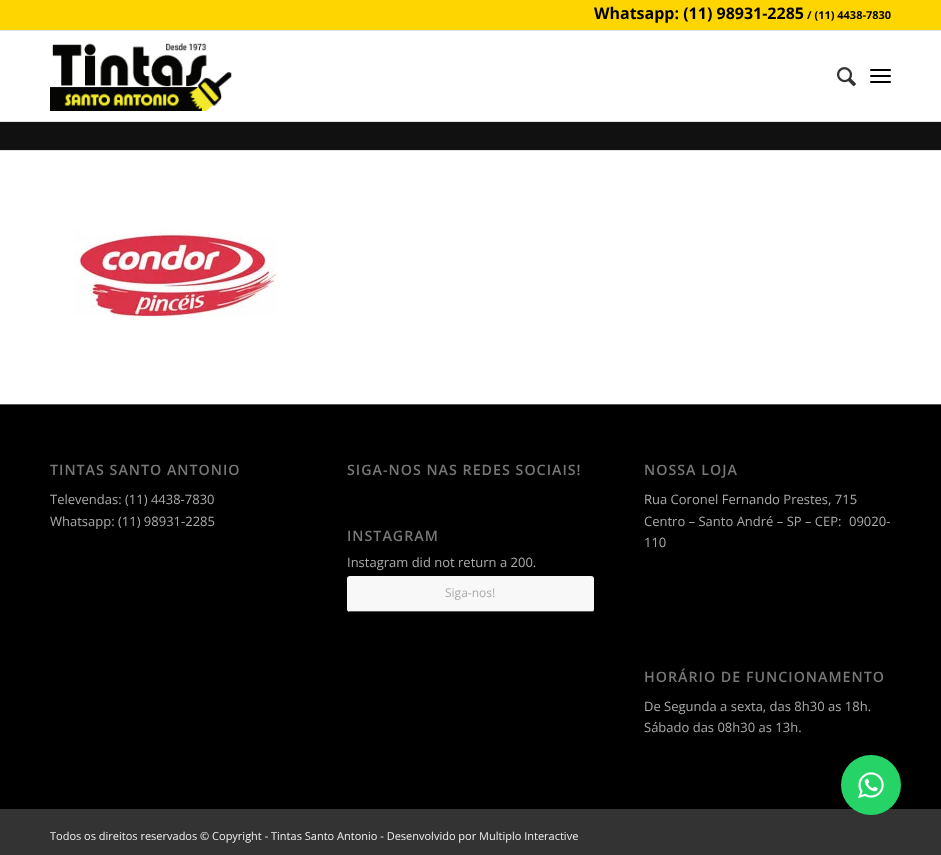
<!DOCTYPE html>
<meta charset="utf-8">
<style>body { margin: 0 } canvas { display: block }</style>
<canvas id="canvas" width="941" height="855"></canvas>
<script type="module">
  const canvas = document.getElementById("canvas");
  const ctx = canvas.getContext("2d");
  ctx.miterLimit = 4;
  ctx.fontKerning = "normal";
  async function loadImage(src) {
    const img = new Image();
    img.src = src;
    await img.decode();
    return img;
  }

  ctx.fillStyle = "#ffffff";
  ctx.fillRect(0, 0, 941, 855);
  ctx.fillStyle = "#ffd500";
  ctx.fillRect(0, 0, 941, 30);
  ctx.fillStyle = "#e1e1e1";
  ctx.fillRect(0, 30, 941, 1);
  ctx.font = "bold 16px Open Sans";
  ctx.fillStyle = "#000000";
  ctx.fillText("Whatsapp: (11) 98931-2285", 594, 19);
  ctx.font = "bold 11px Open Sans";
  ctx.fillText("/ (11) 4438-7830", 807, 19);
  ctx.fillStyle = "#e1e1e1";
  ctx.fillRect(0, 121, 941, 1);
  ctx.drawImage(await loadImage("img1.png"), 50, 42, 182, 69);
  ctx.drawImage(await loadImage("img2.png"), 837, 67, 19, 20);
  ctx.fillStyle = "#000000";
  ctx.beginPath();
  ctx.roundRect(870, 75, 21, 2, 1);
  ctx.fill();
  ctx.beginPath();
  ctx.roundRect(870, 69, 21, 2, 1);
  ctx.fill();
  ctx.beginPath();
  ctx.roundRect(870, 81, 21, 2, 1);
  ctx.fill();
  ctx.fillStyle = "#111111";
  ctx.fillRect(0, 122, 941, 28);
  ctx.fillStyle = "#e1e1e1";
  ctx.fillRect(0, 150, 941, 1);
  ctx.drawImage(await loadImage("img3.png"), 74, 229, 203, 88);
  ctx.fillStyle = "#000000";
  ctx.fillRect(0, 405, 941, 404);
  ctx.fillStyle = "#555555";
  ctx.fillRect(0, 404, 941, 1);
  ctx.letterSpacing = "1px";
  ctx.font = "600 14.25px Open Sans";
  ctx.fillStyle = "#777777";
  ctx.fillText("TINTAS SANTO ANTONIO", 50, 475);
  ctx.letterSpacing = "0px";
  ctx.font = "13px Open Sans";
  ctx.fillStyle = "#aaaaaa";
  ctx.fillText("Televendas: (11) 4438-7830", 50, 504);
  ctx.fillText("Whatsapp: (11) 98931-2285", 50, 526);
  ctx.letterSpacing = "1px";
  ctx.font = "600 14.25px Open Sans";
  ctx.fillStyle = "#777777";
  ctx.fillText("SIGA-NOS NAS REDES SOCIAIS!", 347, 475);
  ctx.fillText("INSTAGRAM", 347, 541);
  ctx.letterSpacing = "0px";
  ctx.font = "13px Open Sans";
  ctx.fillStyle = "#aaaaaa";
  ctx.fillText("Instagram did not return a 200.", 347, 567);
  ctx.fillStyle = "#f8f8f8";
  ctx.beginPath();
  ctx.roundRect(347, 576, 247, 36, 3);
  ctx.fill();
  ctx.fillStyle = "#555555";
  ctx.fillRect(349, 611, 244, 1);
  ctx.font = "12px Open Sans";
  ctx.fillStyle = "#aaaaaa";
  ctx.fillText("Siga-nos!", 445, 597);
  ctx.letterSpacing = "1px";
  ctx.font = "600 14.25px Open Sans";
  ctx.fillStyle = "#777777";
  ctx.fillText("NOSSA LOJA", 644, 475);
  ctx.letterSpacing = "0px";
  ctx.font = "13px Open Sans";
  ctx.fillStyle = "#aaaaaa";
  ctx.fillText("Rua Coronel Fernando Prestes, 715", 644, 504);
  ctx.fillText("Centro – Santo André – SP – CEP:", 644, 526);
  ctx.fillText("09020-", 849, 526);
  ctx.fillText("110", 644, 547);
  ctx.letterSpacing = "1px";
  ctx.font = "600 14.25px Open Sans";
  ctx.fillStyle = "#777777";
  ctx.fillText("HORÁRIO DE FUNCIONAMENTO", 644, 682);
  ctx.letterSpacing = "0px";
  ctx.font = "13px Open Sans";
  ctx.fillStyle = "#aaaaaa";
  ctx.fillText("De Segunda a sexta, das 8h30 as 18h.", 644, 711);
  ctx.fillText("Sábado das 08h30 as 13h.", 644, 732);
  ctx.fillStyle = "#333333";
  ctx.fillRect(0, 809, 941, 46);
  ctx.font = "11px Open Sans";
  ctx.fillStyle = "#eeeeee";
  ctx.fillText("Todos os direitos reservados © Copyright - Tintas Santo Antonio - Desenvolvido por Multiplo Interactive", 50, 840);
  ctx.fillStyle = "#25d366";
  ctx.beginPath();
  ctx.arc(871, 785, 30, 0, Math.PI * 2);
  ctx.fill();
  ctx.drawImage(await loadImage("img4.png"), 858, 772, 26, 27);
</script>
